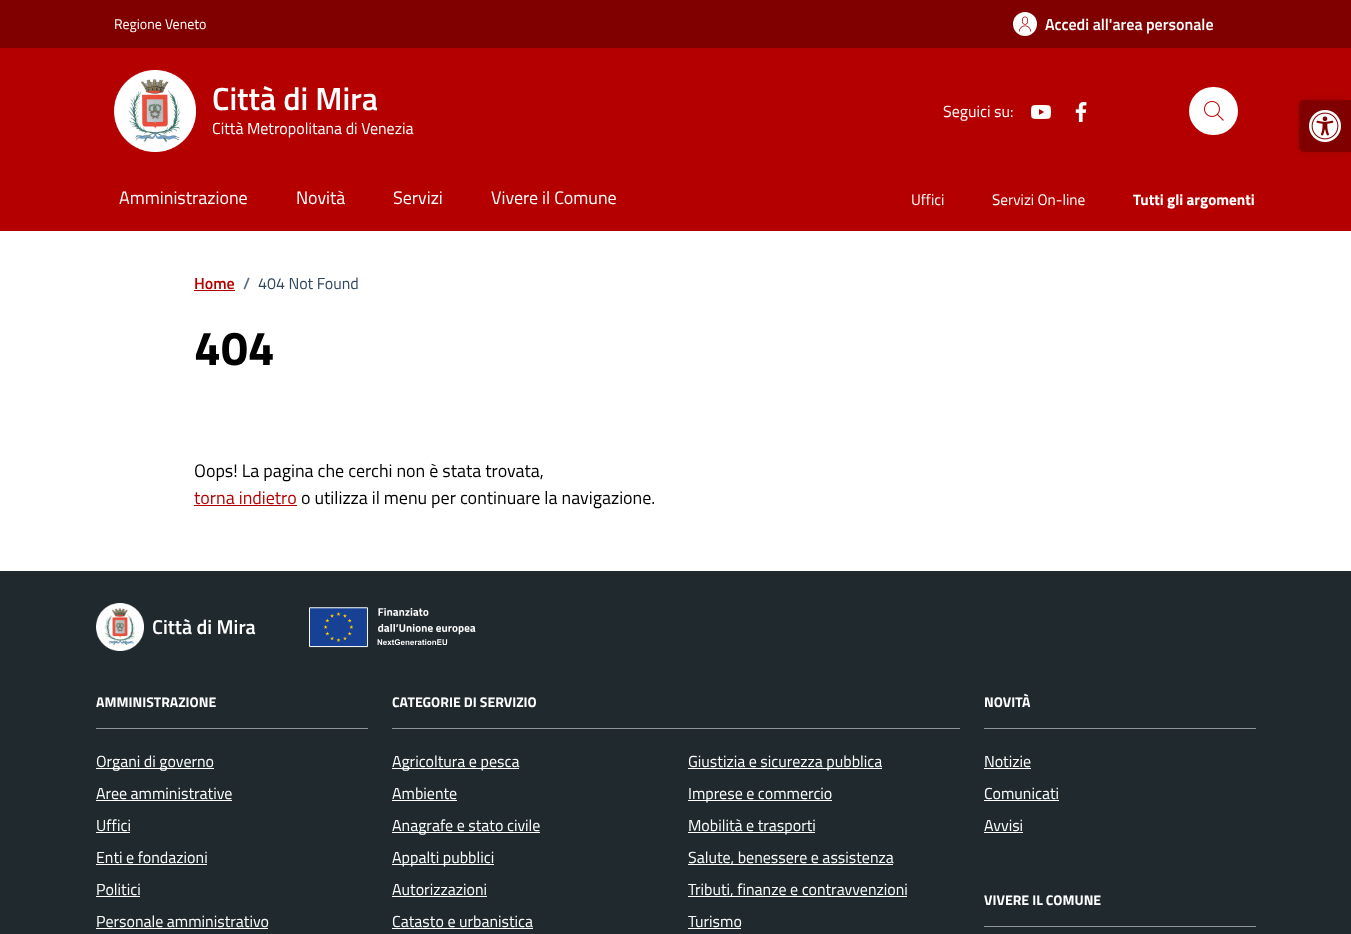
<!DOCTYPE html>
<meta charset="utf-8">
<style>body { margin: 0 } canvas { display: block }</style>
<canvas id="canvas" width="1351" height="934"></canvas>
<script type="module">
  const canvas = document.getElementById("canvas");
  const ctx = canvas.getContext("2d");
  ctx.miterLimit = 4;
  ctx.fontKerning = "normal";
  async function loadImage(src) {
    const img = new Image();
    img.src = src;
    await img.decode();
    return img;
  }

  ctx.fillStyle = "#ffffff";
  ctx.fillRect(0, 0, 1351, 934);
  ctx.fillStyle = "#800000";
  ctx.fillRect(0, 0, 1351, 48);
  ctx.font = "14px Titillium Web";
  ctx.fillStyle = "#ffffff";
  ctx.fillText("Regione Veneto", 114, 29);
  ctx.beginPath();
  ctx.arc(1025, 24, 12, 0, Math.PI * 2);
  ctx.fill();
  ctx.drawImage(await loadImage("img1.png"), 1019, 16, 12, 16);
  ctx.font = "600 16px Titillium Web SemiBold";
  ctx.fillText("Accedi all'area personale", 1045, 30);
  ctx.fillStyle = "#b50000";
  ctx.fillRect(0, 48, 1351, 183);
  ctx.drawImage(await loadImage("img2.png"), 114, 70, 82, 82);
  ctx.font = "600 32px Titillium Web SemiBold";
  ctx.fillStyle = "#ffffff";
  ctx.fillText("Città di Mira", 212, 110);
  ctx.font = "16px Titillium Web";
  ctx.fillText("Città Metropolitana di Venezia", 212, 134);
  ctx.fillText("Seguici su:", 943, 117);
  ctx.drawImage(await loadImage("img3.png"), 1031, 105, 20, 14);
  ctx.drawImage(await loadImage("img4.png"), 1075, 102, 12, 20);
  ctx.beginPath();
  ctx.roundRect(1189, 87, 49, 48, 24);
  ctx.fill();
  ctx.drawImage(await loadImage("img5.png"), 1204, 101, 20, 20);
  ctx.font = "18px Titillium Web";
  ctx.fillText("Amministrazione", 119, 204);
  ctx.fillText("Novità", 296, 204);
  ctx.fillText("Servizi", 393, 204);
  ctx.fillText("Vivere il Comune", 491, 204);
  ctx.font = "15.25px Titillium Web";
  ctx.fillText("Uffici", 911, 205);
  ctx.fillText("Servizi On-line", 992, 205);
  ctx.font = "bold 15.25px Titillium Web";
  ctx.fillText("Tutti gli argomenti", 1133, 205);
  ctx.fillStyle = "rgba(0, 0, 0, 0.1)";
  ctx.filter = "blur(5px)";
  ctx.beginPath();
  ctx.roundRect(1299, 100, 52, 52, 5);
  ctx.fill();
  ctx.filter = "none";
  ctx.fillStyle = "#800000";
  ctx.beginPath();
  ctx.roundRect(1299, 100, 52, 52, [5, 0, 0, 5]);
  ctx.fill();
  ctx.drawImage(await loadImage("img6.png"), 1309, 110, 32, 32);
  ctx.font = "600 16px Titillium Web SemiBold";
  ctx.fillStyle = "#b50000";
  ctx.fillText("Home", 194, 289);
  ctx.fillRect(194, 290, 41, 1);
  ctx.fillStyle = "#5d7083";
  ctx.fillText("/", 243, 289);
  ctx.font = "16px Titillium Web";
  ctx.fillStyle = "#30475f";
  ctx.fillText("404 Not Found", 258, 289);
  ctx.font = "bold 48px Titillium Web";
  ctx.fillStyle = "#000000";
  ctx.fillText("404", 194, 365);
  ctx.font = "18px Titillium Web";
  ctx.fillText("Oops! La pagina che cerchi non è stata trovata,", 194, 477);
  ctx.fillStyle = "#b50000";
  ctx.fillText("torna indietro", 194, 504);
  ctx.fillRect(194, 505, 103, 1);
  ctx.fillStyle = "#000000";
  ctx.fillText("o utilizza il menu per continuare la navigazione.", 301, 504);
  ctx.fillStyle = "#202a2e";
  ctx.fillRect(0, 571, 1351, 363);
  ctx.drawImage(await loadImage("img7.png"), 96, 603, 48, 48);
  ctx.font = "600 20px Titillium Web SemiBold";
  ctx.fillStyle = "#ffffff";
  ctx.fillText("Città di Mira", 152, 634);
  ctx.drawImage(await loadImage("img8.png"), 309, 607, 167, 41);
  ctx.fillStyle = "#909597";
  ctx.fillRect(96, 728, 272, 1);
  ctx.font = "bold 14px Titillium Web";
  ctx.fillStyle = "#ffffff";
  ctx.fillText("AMMINISTRAZIONE", 96, 707);
  ctx.fillRect(96, 768, 118, 1);
  ctx.font = "16px Titillium Web";
  ctx.fillText("Organi di governo", 96, 767);
  ctx.fillText("Aree amministrative", 96, 799);
  ctx.fillRect(96, 800, 136, 1);
  ctx.fillText("Uffici", 96, 831);
  ctx.fillRect(96, 832, 34, 1);
  ctx.fillText("Enti e fondazioni", 96, 863);
  ctx.fillRect(96, 864, 111, 1);
  ctx.fillText("Politici", 96, 895);
  ctx.fillRect(96, 896, 44, 1);
  ctx.fillText("Personale amministrativo", 96, 927);
  ctx.fillRect(96, 928, 172, 1);
  ctx.fillStyle = "#909597";
  ctx.fillRect(392, 728, 568, 1);
  ctx.font = "bold 14px Titillium Web";
  ctx.fillStyle = "#ffffff";
  ctx.fillText("CATEGORIE DI SERVIZIO", 392, 707);
  ctx.fillRect(392, 768, 127, 1);
  ctx.font = "16px Titillium Web";
  ctx.fillText("Agricoltura e pesca", 392, 767);
  ctx.fillText("Ambiente", 392, 799);
  ctx.fillRect(392, 800, 65, 1);
  ctx.fillRect(392, 832, 148, 1);
  ctx.fillText("Anagrafe e stato civile", 392, 831);
  ctx.fillRect(392, 864, 102, 1);
  ctx.fillText("Appalti pubblici", 392, 863);
  ctx.fillText("Autorizzazioni", 392, 895);
  ctx.fillRect(392, 896, 95, 1);
  ctx.fillText("Catasto e urbanistica", 392, 927);
  ctx.fillRect(392, 928, 141, 1);
  ctx.fillRect(688, 768, 194, 1);
  ctx.fillText("Giustizia e sicurezza pubblica", 688, 767);
  ctx.fillRect(688, 800, 144, 1);
  ctx.fillText("Imprese e commercio", 688, 799);
  ctx.fillRect(688, 832, 127, 1);
  ctx.fillText("Mobilità e trasporti", 688, 831);
  ctx.fillRect(688, 864, 205, 1);
  ctx.fillText("Salute, benessere e assistenza", 688, 863);
  ctx.fillRect(688, 896, 219, 1);
  ctx.fillText("Tributi, finanze e contravvenzioni", 688, 895);
  ctx.fillText("Turismo", 688, 927);
  ctx.fillRect(688, 928, 53, 1);
  ctx.fillStyle = "#909597";
  ctx.fillRect(984, 728, 272, 1);
  ctx.font = "bold 14px Titillium Web";
  ctx.fillStyle = "#ffffff";
  ctx.fillText("NOVITÀ", 984, 707);
  ctx.font = "16px Titillium Web";
  ctx.fillText("Notizie", 984, 767);
  ctx.fillRect(984, 768, 47, 1);
  ctx.fillText("Comunicati", 984, 799);
  ctx.fillRect(984, 800, 75, 1);
  ctx.fillText("Avvisi", 984, 831);
  ctx.fillRect(984, 832, 39, 1);
  ctx.fillStyle = "#909597";
  ctx.fillRect(984, 926, 272, 1);
  ctx.font = "bold 14px Titillium Web";
  ctx.fillStyle = "#ffffff";
  ctx.fillText("VIVERE IL COMUNE", 984, 905);
</script>
